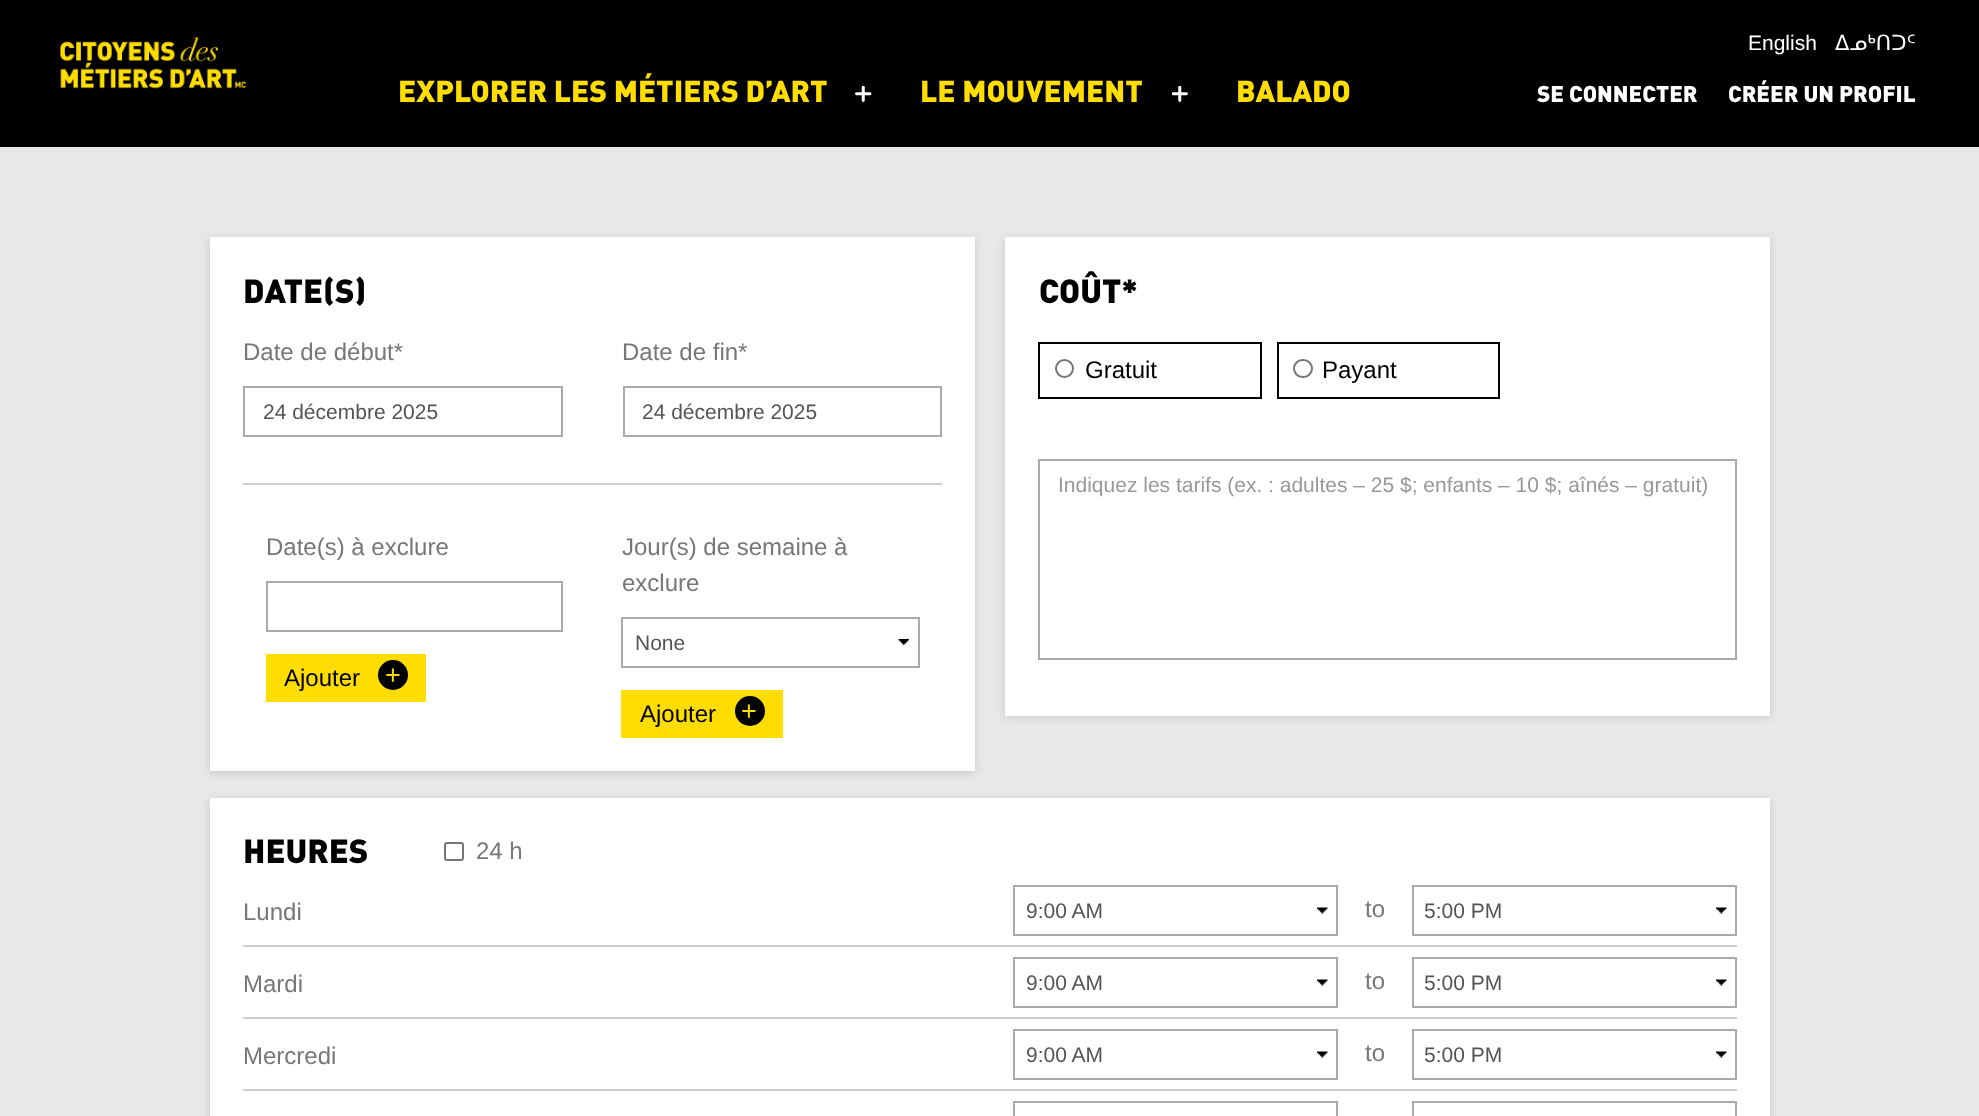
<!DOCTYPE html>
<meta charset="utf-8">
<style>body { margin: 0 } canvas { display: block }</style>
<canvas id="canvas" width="1979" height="1116"></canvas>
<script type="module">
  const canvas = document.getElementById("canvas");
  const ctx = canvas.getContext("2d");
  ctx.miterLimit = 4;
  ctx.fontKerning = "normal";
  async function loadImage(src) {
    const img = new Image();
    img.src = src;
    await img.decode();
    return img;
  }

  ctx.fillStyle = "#000000";
  ctx.fillRect(0, 0, 1979, 1116);
  ctx.drawImage(await loadImage("img1.png"), 60, 37, 186, 52);
  ctx.font = "30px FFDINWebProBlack";
  ctx.fillStyle = "#ffdd00";
  ctx.fillText("EXPLORER LES MÉTIERS D’ART", 398, 102);
  ctx.drawImage(await loadImage("img2.png"), 855, 86, 17, 16);
  ctx.fillText("LE MOUVEMENT", 920, 102);
  ctx.drawImage(await loadImage("img3.png"), 1172, 86, 16, 16);
  ctx.fillText("BALADO", 1236, 102);
  ctx.font = "21px Liberation Sans";
  ctx.fillStyle = "#ffffff";
  ctx.fillText("English", 1748, 50);
  ctx.font = "21px DejaVu Sans";
  ctx.fillText("ᐃᓄᒃᑎᑐᑦ", 1835, 50);
  ctx.font = "22.5px FFDINWebProBlack";
  ctx.fillText("SE CONNECTER", 1537, 102);
  ctx.fillText("CRÉER UN PROFIL", 1728, 102);
  ctx.fillStyle = "#e8e8e8";
  ctx.fillRect(0, 147, 1979, 969);
  ctx.fillStyle = "#c6c6c6";
  ctx.filter = "blur(4px)";
  ctx.beginPath();
  ctx.rect(210, 239, 765, 534);
  ctx.fill();
  ctx.filter = "none";
  ctx.fillStyle = "#ffffff";
  ctx.fillRect(210, 237, 765, 534);
  ctx.font = "33px FFDINWebProBlack";
  ctx.fillStyle = "#000000";
  ctx.fillText("DATE(S)", 243, 303);
  ctx.font = "24px Liberation Sans";
  ctx.fillStyle = "#777777";
  ctx.fillText("Date de début*", 243, 360);
  ctx.strokeStyle = "#aaaaaa";
  ctx.lineWidth = 2;
  ctx.strokeRect(244, 387, 318, 49);
  ctx.font = "21px Liberation Sans";
  ctx.fillStyle = "#555555";
  ctx.fillText("24 décembre 2025", 263, 419);
  ctx.font = "24px Liberation Sans";
  ctx.fillStyle = "#777777";
  ctx.fillText("Date de fin*", 622, 360);
  ctx.strokeRect(624, 387, 317, 49);
  ctx.font = "21px Liberation Sans";
  ctx.fillStyle = "#555555";
  ctx.fillText("24 décembre 2025", 642, 419);
  ctx.fillStyle = "#cfcfcf";
  ctx.fillRect(243, 483, 699, 2);
  ctx.font = "24px Liberation Sans";
  ctx.fillStyle = "#777777";
  ctx.fillText("Date(s) à exclure", 266, 555);
  ctx.strokeRect(267, 582, 295, 49);
  ctx.fillStyle = "#ffdd00";
  ctx.fillRect(266, 654, 160, 48);
  ctx.fillStyle = "#000000";
  ctx.fillText("Ajouter", 284, 686);
  ctx.beginPath();
  ctx.arc(393, 675, 15, 0, Math.PI * 2);
  ctx.fill();
  ctx.font = "27px Liberation Sans";
  ctx.fillStyle = "#ffdd00";
  ctx.fillText("+", 385, 684);
  ctx.font = "24px Liberation Sans";
  ctx.fillStyle = "#777777";
  ctx.fillText("Jour(s) de semaine à", 622, 555);
  ctx.fillText("exclure", 622, 591);
  ctx.drawImage(await loadImage("img4.png"), 898, 639, 11, 6);
  ctx.strokeRect(622, 618, 297, 49);
  ctx.font = "21px Liberation Sans";
  ctx.fillStyle = "#555555";
  ctx.fillText("None", 635, 650);
  ctx.fillStyle = "#ffdd00";
  ctx.fillRect(621, 690, 162, 48);
  ctx.font = "24px Liberation Sans";
  ctx.fillStyle = "#000000";
  ctx.fillText("Ajouter", 640, 722);
  ctx.beginPath();
  ctx.arc(750, 711, 15, 0, Math.PI * 2);
  ctx.fill();
  ctx.font = "27px Liberation Sans";
  ctx.fillStyle = "#ffdd00";
  ctx.fillText("+", 741, 720);
  ctx.fillStyle = "#c6c6c6";
  ctx.filter = "blur(4px)";
  ctx.beginPath();
  ctx.rect(1005, 239, 765, 478);
  ctx.fill();
  ctx.filter = "none";
  ctx.fillStyle = "#ffffff";
  ctx.fillRect(1005, 237, 765, 479);
  ctx.font = "33px FFDINWebProBlack";
  ctx.fillStyle = "#000000";
  ctx.fillText("COÛT*", 1039, 303);
  ctx.strokeStyle = "#000000";
  ctx.strokeRect(1039, 343, 222, 55);
  ctx.beginPath();
  ctx.arc(1064.5, 368.5, 8.5, 0, Math.PI * 2);
  ctx.strokeStyle = "#767676";
  ctx.stroke();
  ctx.font = "24px Liberation Sans";
  ctx.fillText("Gratuit", 1085, 378);
  ctx.strokeStyle = "#000000";
  ctx.strokeRect(1278, 343, 221, 55);
  ctx.beginPath();
  ctx.roundRect(1294, 360, 18, 17, 8.5);
  ctx.strokeStyle = "#767676";
  ctx.stroke();
  ctx.fillText("Payant", 1322, 378);
  ctx.strokeStyle = "#aaaaaa";
  ctx.strokeRect(1039, 460, 697, 199);
  ctx.font = "21px Liberation Sans";
  ctx.fillStyle = "#999999";
  ctx.fillText("Indiquez les tarifs (ex. : adultes – 25 $; enfants – 10 $; aînés – gratuit)", 1058, 492);
  ctx.fillStyle = "#c6c6c6";
  ctx.filter = "blur(4px)";
  ctx.beginPath();
  ctx.rect(210, 800, 1560, 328);
  ctx.fill();
  ctx.filter = "none";
  ctx.fillStyle = "#ffffff";
  ctx.fillRect(210, 798, 1560, 318);
  ctx.font = "33px FFDINWebProBlack";
  ctx.fillStyle = "#000000";
  ctx.fillText("HEURES", 243, 863);
  ctx.beginPath();
  ctx.roundRect(445, 843, 18, 17, 2);
  ctx.strokeStyle = "#767676";
  ctx.stroke();
  ctx.font = "24px Liberation Sans";
  ctx.fillStyle = "#777777";
  ctx.fillText("24 h", 476, 859);
  ctx.fillText("Lundi", 243, 920);
  ctx.drawImage(await loadImage("img5.png"), 1317, 907, 11, 7);
  ctx.strokeStyle = "#aaaaaa";
  ctx.strokeRect(1014, 886, 323, 49);
  ctx.font = "21px Liberation Sans";
  ctx.fillStyle = "#555555";
  ctx.fillText("9:00 AM", 1026, 918);
  ctx.font = "24px Liberation Sans";
  ctx.fillStyle = "#777777";
  ctx.fillText("to", 1365, 917);
  ctx.drawImage(await loadImage("img5.png"), 1716, 907, 11, 7);
  ctx.strokeRect(1413, 886, 323, 49);
  ctx.font = "21px Liberation Sans";
  ctx.fillStyle = "#555555";
  ctx.fillText("5:00 PM", 1424, 918);
  ctx.fillStyle = "#cfcfcf";
  ctx.fillRect(243, 945, 1494, 2);
  ctx.font = "24px Liberation Sans";
  ctx.fillStyle = "#777777";
  ctx.fillText("Mardi", 243, 992);
  ctx.drawImage(await loadImage("img5.png"), 1317, 979, 11, 7);
  ctx.strokeRect(1014, 958, 323, 49);
  ctx.font = "21px Liberation Sans";
  ctx.fillStyle = "#555555";
  ctx.fillText("9:00 AM", 1026, 990);
  ctx.font = "24px Liberation Sans";
  ctx.fillStyle = "#777777";
  ctx.fillText("to", 1365, 989);
  ctx.drawImage(await loadImage("img5.png"), 1716, 979, 11, 7);
  ctx.strokeRect(1413, 958, 323, 49);
  ctx.font = "21px Liberation Sans";
  ctx.fillStyle = "#555555";
  ctx.fillText("5:00 PM", 1424, 990);
  ctx.fillStyle = "#cfcfcf";
  ctx.fillRect(243, 1017, 1494, 2);
  ctx.font = "24px Liberation Sans";
  ctx.fillStyle = "#777777";
  ctx.fillText("Mercredi", 243, 1064);
  ctx.drawImage(await loadImage("img5.png"), 1317, 1051, 11, 7);
  ctx.strokeRect(1014, 1030, 323, 49);
  ctx.font = "21px Liberation Sans";
  ctx.fillStyle = "#555555";
  ctx.fillText("9:00 AM", 1026, 1062);
  ctx.font = "24px Liberation Sans";
  ctx.fillStyle = "#777777";
  ctx.fillText("to", 1365, 1061);
  ctx.drawImage(await loadImage("img5.png"), 1716, 1051, 11, 7);
  ctx.strokeRect(1413, 1030, 323, 49);
  ctx.font = "21px Liberation Sans";
  ctx.fillStyle = "#555555";
  ctx.fillText("5:00 PM", 1424, 1062);
  ctx.fillStyle = "#cfcfcf";
  ctx.fillRect(243, 1089, 1494, 2);
  ctx.strokeRect(1014, 1102, 323, 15);
  ctx.strokeRect(1413, 1102, 323, 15);
</script>
